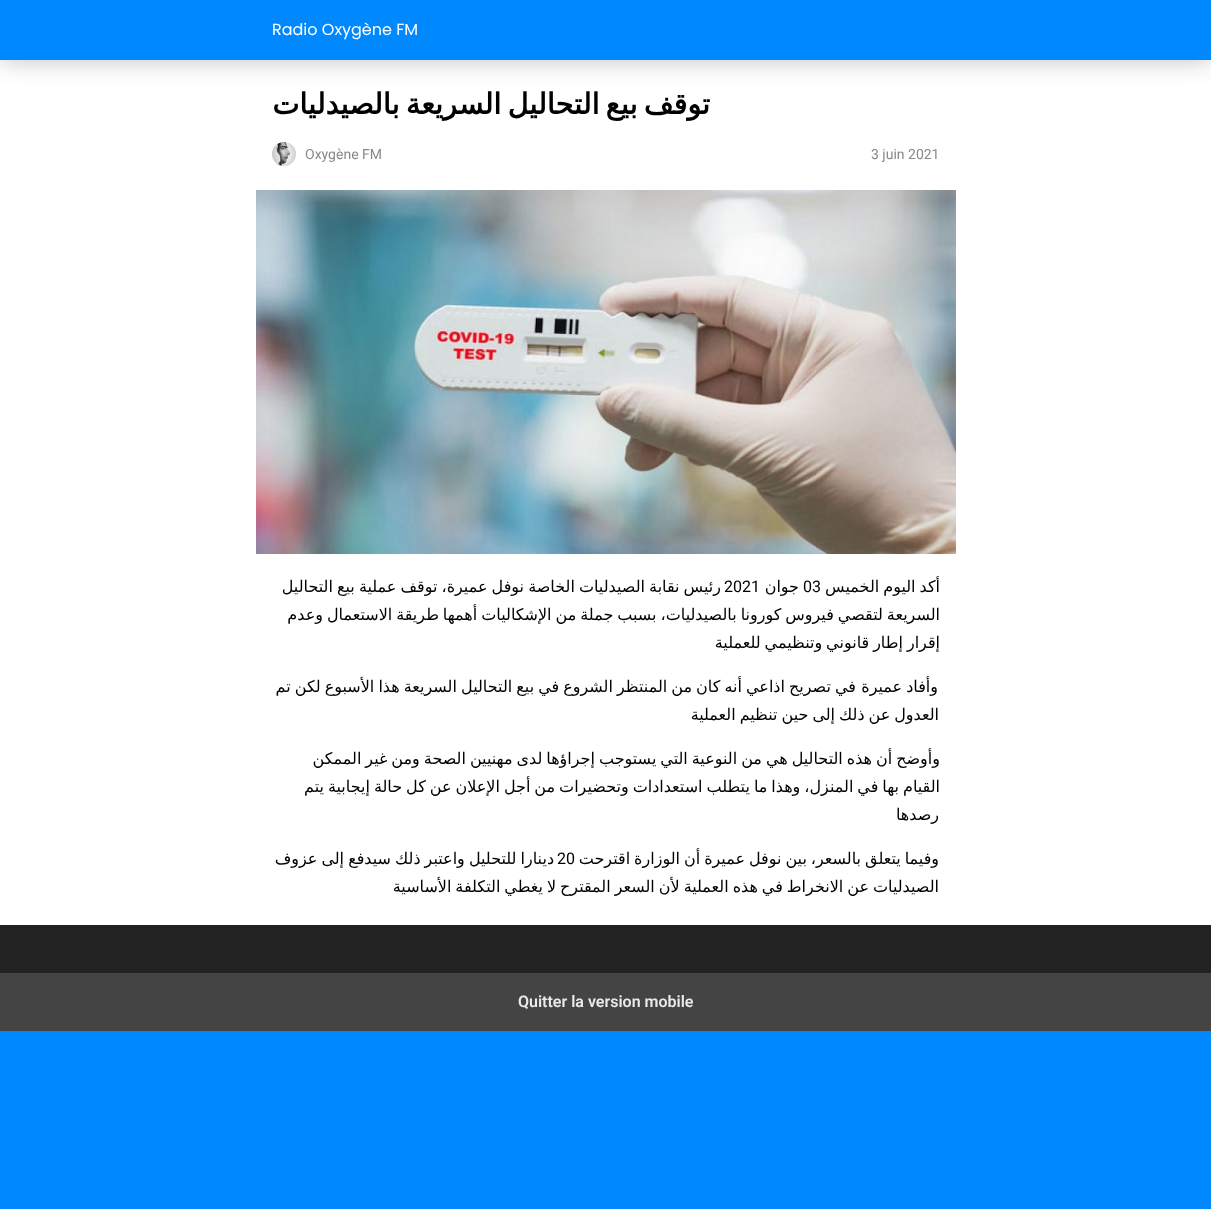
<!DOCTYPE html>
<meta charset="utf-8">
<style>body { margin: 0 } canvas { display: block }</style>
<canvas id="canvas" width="1211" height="1209"></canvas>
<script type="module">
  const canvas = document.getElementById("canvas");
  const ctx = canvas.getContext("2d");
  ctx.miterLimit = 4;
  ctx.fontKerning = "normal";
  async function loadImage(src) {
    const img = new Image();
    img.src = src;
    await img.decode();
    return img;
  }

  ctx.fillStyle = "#0088ff";
  ctx.fillRect(0, 0, 1211, 1209);
  ctx.fillStyle = "#ffffff";
  ctx.fillRect(0, 60, 1211, 865);
  ctx.fillStyle = "rgba(0, 0, 0, 0.25)";
  ctx.filter = "blur(12px)";
  ctx.beginPath();
  ctx.rect(0, 0, 1211, 60);
  ctx.fill();
  ctx.filter = "none";
  ctx.fillStyle = "#0088ff";
  ctx.fillRect(0, 0, 1211, 60);
  ctx.font = "16px Poppins";
  ctx.fillStyle = "#ffffff";
  ctx.fillText("Radio Oxygène FM", 272, 35);
  ctx.wordSpacing = "-3px";
  ctx.direction = "rtl";
  ctx.font = "bold 28.75px DejaVu Sans";
  ctx.fillStyle = "#000000";
  ctx.fillText("توقف بيع التحاليل السريعة بالصيدليات", 710, 114);
  ctx.wordSpacing = "0px";
  ctx.direction = "ltr";
  ctx.font = "14px Roboto";
  ctx.fillStyle = "#888888";
  ctx.fillText("3 juin 2021", 871, 159);
  ctx.fillText("Oxygène FM", 305, 159);
  ctx.drawImage(await loadImage("img1.png"), 272, 142, 24, 24);
  ctx.drawImage(await loadImage("img2.png"), 256, 190, 700, 364);
  ctx.wordSpacing = "-1.1px";
  ctx.direction = "rtl";
  ctx.font = "16px DejaVu Sans";
  ctx.fillStyle = "#000000";
  ctx.fillText("أكد اليوم الخميس", 940, 592);
  ctx.wordSpacing = "0px";
  ctx.direction = "ltr";
  ctx.font = "16px Roboto";
  ctx.fillText("03", 803, 592);
  ctx.direction = "rtl";
  ctx.font = "16px DejaVu Sans";
  ctx.fillText("جوان", 799, 592);
  ctx.wordSpacing = "-1px";
  ctx.fillText("رئيس نقابة الصيدليات الخاصة نوفل عميرة، توقف عملية بيع التحاليل", 721, 592);
  ctx.wordSpacing = "0px";
  ctx.direction = "ltr";
  ctx.font = "16px Roboto";
  ctx.fillText("2021", 724, 592);
  ctx.wordSpacing = "-1.1px";
  ctx.direction = "rtl";
  ctx.font = "16px DejaVu Sans";
  ctx.fillText("السريعة لتقصي فيروس كورونا بالصيدليات، بسبب جملة من الإشكاليات أهمها طريقة الاستعمال وعدم", 940, 620);
  ctx.fillText("إقرار إطار قانوني وتنظيمي للعملية", 940, 648);
  ctx.wordSpacing = "-1px";
  ctx.fillText("في تصريح اذاعي أنه كان من المنتظر الشروع في بيع التحاليل السريعة هذا الأسبوع لكن تم", 856, 692);
  ctx.fillText("وأفاد عميرة", 938, 692);
  ctx.wordSpacing = "-1.1px";
  ctx.fillText("العدول عن ذلك إلى حين تنظيم العملية", 939, 720);
  ctx.fillText("وأوضح أن هذه التحاليل هي من النوعية التي يستوجب إجراؤها لدى مهنيين الصحة ومن غير الممكن", 940, 764);
  ctx.fillText("القيام بها في المنزل، وهذا ما يتطلب استعدادات وتحضيرات من أجل الإعلان عن كل حالة إيجابية يتم", 940, 792);
  ctx.wordSpacing = "0px";
  ctx.fillText("رصدها", 939, 820);
  ctx.wordSpacing = "-1.1px";
  ctx.fillText("وفيما يتعلق بالسعر، بين نوفل عميرة أن الوزارة اقترحت", 939, 864);
  ctx.wordSpacing = "-1px";
  ctx.fillText("دينارا للتحليل واعتبر ذلك سيدفع إلى عزوف", 554, 864);
  ctx.wordSpacing = "0px";
  ctx.direction = "ltr";
  ctx.font = "16px Roboto";
  ctx.fillText("20", 557, 864);
  ctx.wordSpacing = "-1.1px";
  ctx.direction = "rtl";
  ctx.font = "16px DejaVu Sans";
  ctx.fillText("الصيدليات عن الانخراط في هذه العملية لأن السعر المقترح لا يغطي التكلفة الأساسية", 939, 892);
  ctx.fillStyle = "#222222";
  ctx.fillRect(0, 925, 1211, 48);
  ctx.fillStyle = "#444444";
  ctx.fillRect(0, 973, 1211, 58);
  ctx.wordSpacing = "0px";
  ctx.direction = "ltr";
  ctx.font = "600 16px Roboto";
  ctx.fillStyle = "#eaeaea";
  ctx.fillText("Quitter la version mobile", 518, 1007);
</script>
